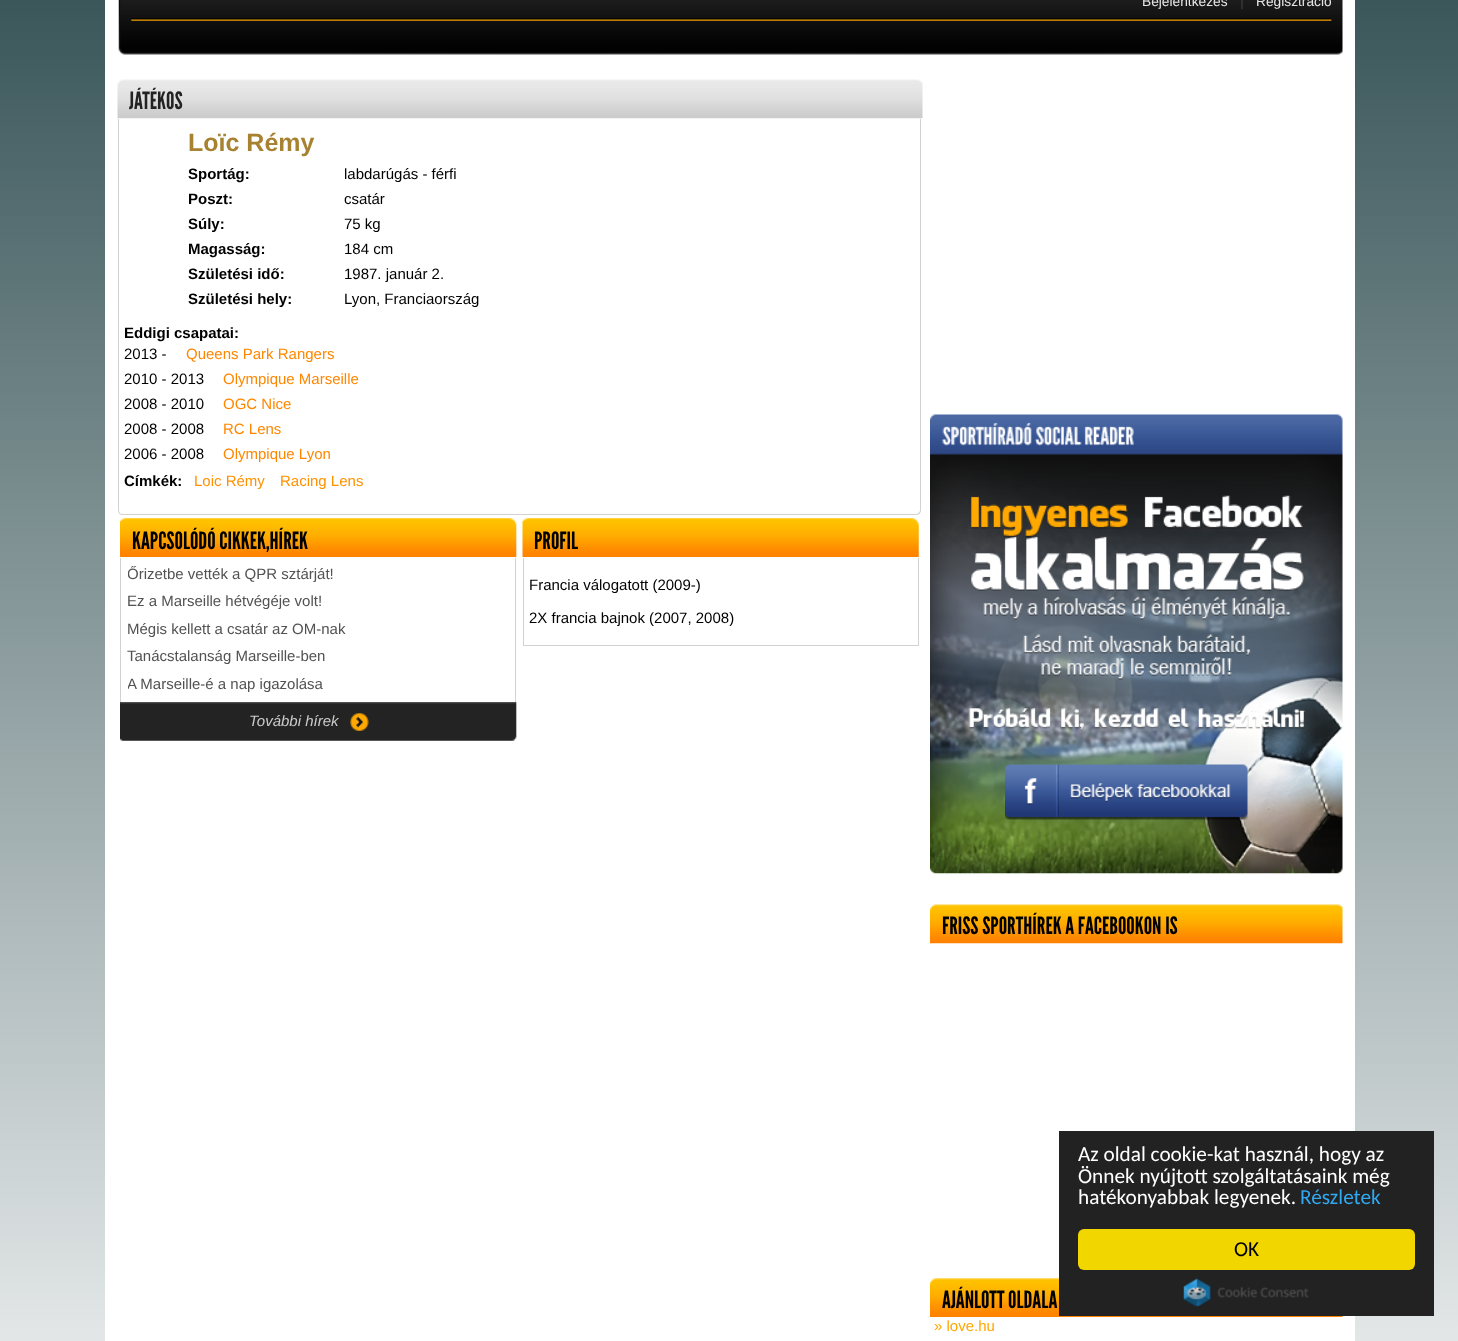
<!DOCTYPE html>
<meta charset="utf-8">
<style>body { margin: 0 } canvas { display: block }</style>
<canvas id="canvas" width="1458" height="1341"></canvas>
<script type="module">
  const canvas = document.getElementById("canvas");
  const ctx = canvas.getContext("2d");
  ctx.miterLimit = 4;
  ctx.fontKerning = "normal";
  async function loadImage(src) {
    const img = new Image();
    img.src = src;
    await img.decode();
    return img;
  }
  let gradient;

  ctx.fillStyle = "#ffffff";
  ctx.fillRect(0, 0, 1458, 1341);
  gradient = ctx.createLinearGradient(729, -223, 729, 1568);
  gradient.addColorStop(0, "#1f3f43");
  gradient.addColorStop(1, "#ffffff");
  ctx.fillStyle = gradient;
  ctx.fillRect(0, 0, 1458, 1341);
  ctx.fillStyle = "#ffffff";
  ctx.fillRect(105, 0, 1250, 1341);
  ctx.drawImage(await loadImage("img1.png"), 118, 0, 1225, 55);
  ctx.font = "13.75px Liberation Sans";
  ctx.fillStyle = "#e6e6e6";
  ctx.fillText("Bejelentkezés", 1142, 6);
  ctx.font = "15px Liberation Sans";
  ctx.fillStyle = "#3e3e3e";
  ctx.fillText("|", 1240, 6);
  ctx.font = "13.75px Liberation Sans";
  ctx.fillStyle = "#e6e6e6";
  ctx.fillText("Regisztráció", 1256, 6);
  ctx.drawImage(await loadImage("img2.png"), 117, 79, 806, 40);
  ctx.font = "23.75px League Gothic";
  ctx.fillStyle = "#232323";
  ctx.fillText("JÁTÉKOS", 129, 109);
  ctx.fillStyle = "#d2d2d2";
  ctx.fillRect(920, 119, 1, 199);
  ctx.fillRect(118, 119, 1, 199);
  ctx.font = "bold 25px Liberation Sans";
  ctx.fillStyle = "#a78231";
  ctx.fillText("Loïc Rémy", 188, 151);
  ctx.font = "bold 15px Liberation Sans";
  ctx.fillStyle = "#000000";
  ctx.fillText("Sportág:", 188, 179);
  ctx.font = "15px Liberation Sans";
  ctx.fillText("labdarúgás - férfi", 344, 179);
  ctx.font = "bold 15px Liberation Sans";
  ctx.fillText("Poszt:", 188, 204);
  ctx.font = "15px Liberation Sans";
  ctx.fillText("csatár", 344, 204);
  ctx.font = "bold 15px Liberation Sans";
  ctx.fillText("Súly:", 188, 229);
  ctx.font = "15px Liberation Sans";
  ctx.fillText("75 kg", 344, 229);
  ctx.font = "bold 15px Liberation Sans";
  ctx.fillText("Magasság:", 188, 254);
  ctx.font = "15px Liberation Sans";
  ctx.fillText("184 cm", 344, 254);
  ctx.font = "bold 15px Liberation Sans";
  ctx.fillText("Születési idő:", 188, 279);
  ctx.font = "15px Liberation Sans";
  ctx.fillText("1987. január 2.", 344, 279);
  ctx.font = "bold 15px Liberation Sans";
  ctx.fillText("Születési hely:", 188, 304);
  ctx.font = "15px Liberation Sans";
  ctx.fillText("Lyon, Franciaország", 344, 304);
  ctx.fillStyle = "#d2d2d2";
  ctx.beginPath();
  ctx.moveTo(118, 318);
  ctx.lineTo(921, 318);
  ctx.lineTo(921, 510);
  ctx.bezierCurveTo(921, 513, 919, 515, 916, 515);
  ctx.lineTo(122, 515);
  ctx.bezierCurveTo(120, 515, 118, 513, 118, 510);
  ctx.closePath();
  ctx.moveTo(119, 318);
  ctx.lineTo(920, 318);
  ctx.lineTo(920, 510);
  ctx.bezierCurveTo(920, 512, 918, 514, 916, 514);
  ctx.lineTo(122, 514);
  ctx.bezierCurveTo(120, 514, 119, 512, 119, 510);
  ctx.closePath();
  ctx.fill("evenodd");
  ctx.font = "bold 15px Liberation Sans";
  ctx.fillStyle = "#000000";
  ctx.fillText("Eddigi csapatai:", 124, 338);
  ctx.font = "15px Liberation Sans";
  ctx.fillText("2013 -", 124, 359);
  ctx.fillStyle = "#ff8700";
  ctx.fillText("Queens Park Rangers", 186, 359);
  ctx.fillStyle = "#000000";
  ctx.fillText("2010 - 2013", 124, 384);
  ctx.fillStyle = "#ff8700";
  ctx.fillText("Olympique Marseille", 223, 384);
  ctx.fillStyle = "#000000";
  ctx.fillText("2008 - 2010", 124, 409);
  ctx.fillStyle = "#ff8700";
  ctx.fillText("OGC Nice", 223, 409);
  ctx.fillStyle = "#000000";
  ctx.fillText("2008 - 2008", 124, 434);
  ctx.fillStyle = "#ff8700";
  ctx.fillText("RC Lens", 223, 434);
  ctx.fillStyle = "#000000";
  ctx.fillText("2006 - 2008", 124, 459);
  ctx.fillStyle = "#ff8700";
  ctx.fillText("Olympique Lyon", 223, 459);
  ctx.font = "bold 15px Liberation Sans";
  ctx.fillStyle = "#000000";
  ctx.fillText("Címkék:", 124, 486);
  ctx.font = "15px Liberation Sans";
  ctx.fillStyle = "#ff9100";
  ctx.fillText("Loic Rémy", 194, 486);
  ctx.fillText("Racing Lens", 280, 486);
  ctx.drawImage(await loadImage("img3.png"), 120, 518, 397, 39);
  ctx.font = "23.75px League Gothic";
  ctx.fillStyle = "#000000";
  ctx.fillText("KAPCSOLÓDÓ CIKKEK,HÍREK", 132, 549);
  ctx.fillStyle = "#d2d2d2";
  ctx.fillRect(515, 558, 1, 145);
  ctx.fillRect(120, 558, 1, 145);
  ctx.save();
  ctx.beginPath();
  ctx.rect(128, 561, 385, 28);
  ctx.clip();
  ctx.font = "15px Liberation Sans";
  ctx.fillStyle = "#525252";
  ctx.fillText("Őrizetbe vették a QPR sztárját!", 127, 579);
  ctx.restore();
  ctx.font = "15px Liberation Sans";
  ctx.fillStyle = "#525252";
  ctx.fillText("Ez a Marseille hétvégéje volt!", 127, 606);
  ctx.fillText("Mégis kellett a csatár az OM-nak", 127, 634);
  ctx.fillText("Tanácstalanság Marseille-ben", 127, 661);
  ctx.save();
  ctx.beginPath();
  ctx.rect(128, 671, 385, 28);
  ctx.clip();
  ctx.fillText("A Marseille-é a nap igazolása", 127, 689);
  ctx.restore();
  ctx.drawImage(await loadImage("img4.png"), 120, 702, 397, 39);
  ctx.font = "italic 15px Liberation Sans";
  ctx.fillStyle = "#cccccc";
  ctx.fillText("További hírek", 249, 726);
  ctx.drawImage(await loadImage("img5.png"), 350, 713, 19, 18);
  ctx.drawImage(await loadImage("img6.png"), 522, 518, 397, 39);
  ctx.font = "23.75px League Gothic";
  ctx.fillStyle = "#000000";
  ctx.fillText("PROFIL", 534, 549);
  ctx.fillStyle = "#d2d2d2";
  ctx.fillRect(918, 558, 1, 88);
  ctx.fillRect(523, 645, 396, 1);
  ctx.fillRect(523, 558, 1, 88);
  ctx.font = "15px Liberation Sans";
  ctx.fillStyle = "#000000";
  ctx.fillText("Francia válogatott (2009-)", 529, 590);
  ctx.fillText("2X francia bajnok (2007, 2008)", 529, 623);
  ctx.drawImage(await loadImage("img7.png"), 930, 414, 413, 460);
  ctx.drawImage(await loadImage("img8.png"), 1005, 764, 243, 56);
  ctx.drawImage(await loadImage("img9.png"), 930, 904, 413, 40);
  ctx.font = "23.75px League Gothic";
  ctx.fillText("FRISS SPORTHÍREK A FACEBOOKON IS", 942, 934);
  ctx.drawImage(await loadImage("img10.png"), 930, 1278, 413, 39);
  ctx.fillText("AJÁNLOTT OLDALA", 942, 1308);
  ctx.font = "15px Liberation Sans";
  ctx.fillStyle = "#ffa800";
  ctx.fillText("» love.hu", 934, 1331);
  ctx.fillStyle = "#222222";
  ctx.fillRect(1059, 1131, 375, 185);
  ctx.font = "21.25px Carlito";
  ctx.fillStyle = "#ffffff";
  ctx.fillText("Az oldal cookie-kat használ, hogy az", 1078, 1161);
  ctx.fillText("Önnek nyújtott szolgáltatásaink még", 1078, 1183);
  ctx.fillText("hatékonyabbak legyenek.", 1078, 1204);
  ctx.fillStyle = "#31a8f0";
  ctx.fillText("Részletek", 1300, 1204);
  ctx.fillStyle = "#f1d600";
  ctx.beginPath();
  ctx.roundRect(1078, 1229, 337, 41, 6);
  ctx.fill();
  ctx.fillStyle = "#000000";
  ctx.fillText("OK", 1234, 1256);
  ctx.drawImage(await loadImage("img11.png"), 1183, 1278, 126, 29);
</script>
